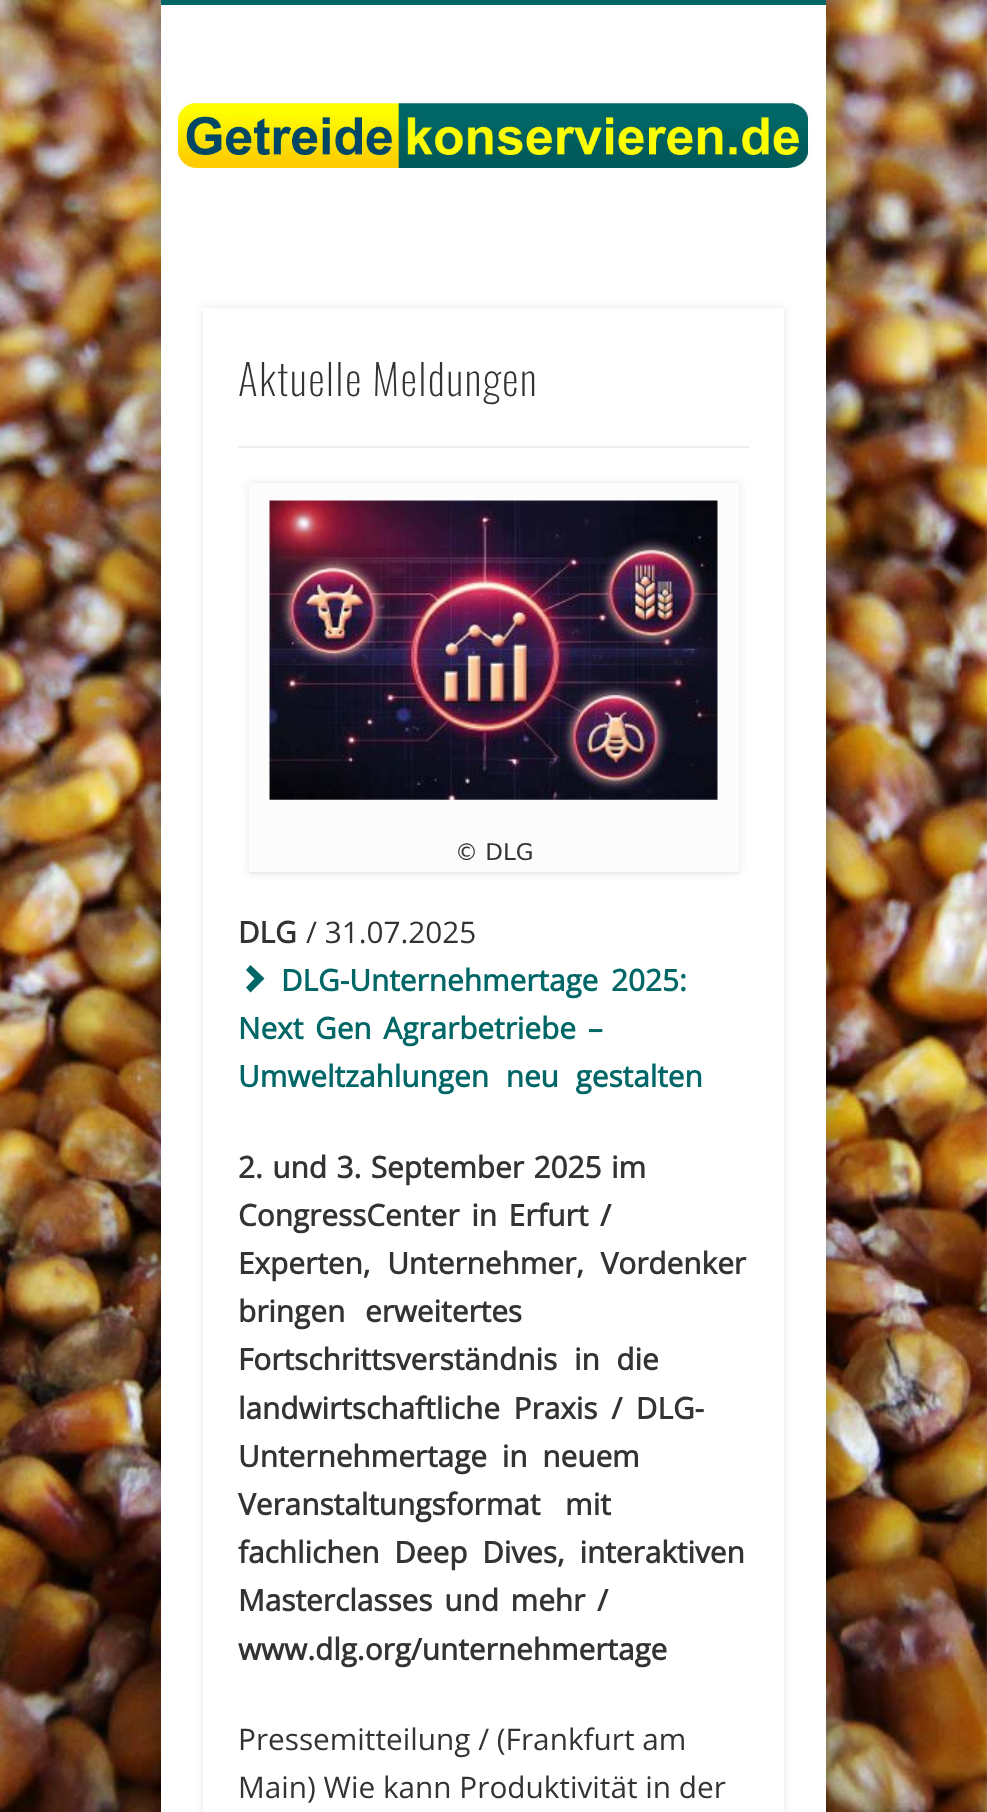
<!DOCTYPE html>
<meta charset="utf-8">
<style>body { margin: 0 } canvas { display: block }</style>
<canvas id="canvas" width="987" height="1812"></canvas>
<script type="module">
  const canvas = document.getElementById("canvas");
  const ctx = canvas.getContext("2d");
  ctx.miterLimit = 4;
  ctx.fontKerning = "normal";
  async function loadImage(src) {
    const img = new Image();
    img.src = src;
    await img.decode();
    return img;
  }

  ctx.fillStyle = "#ffffff";
  ctx.fillRect(0, 0, 987, 1812);
  ctx.drawImage(await loadImage("img1.png"), 0, 0, 987, 1812);
  ctx.fillStyle = "rgba(0, 0, 0, 0.4)";
  ctx.filter = "blur(16px)";
  ctx.beginPath();
  ctx.rect(161, 0, 665, 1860);
  ctx.fill();
  ctx.filter = "none";
  ctx.fillStyle = "#ffffff";
  ctx.fillRect(161, 5, 665, 1807);
  ctx.fillStyle = "#006666";
  ctx.fillRect(161, 0, 665, 5);
  ctx.drawImage(await loadImage("img2.png"), 176, 103, 636, 65);
  ctx.save();
  ctx.beginPath();
  ctx.moveTo(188, 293);
  ctx.lineTo(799, 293);
  ctx.lineTo(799, 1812);
  ctx.lineTo(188, 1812);
  ctx.closePath();
  ctx.moveTo(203, 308);
  ctx.lineTo(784, 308);
  ctx.lineTo(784, 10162);
  ctx.lineTo(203, 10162);
  ctx.closePath();
  ctx.clip("evenodd");
  ctx.fillStyle = "rgba(0, 0, 0, 0.1)";
  ctx.filter = "blur(4.5px)";
  ctx.beginPath();
  ctx.rect(203, 308, 581, 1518);
  ctx.fill();
  ctx.filter = "none";
  ctx.restore();
  ctx.letterSpacing = "1.75px";
  ctx.font = "200 42px Oswald";
  ctx.fillStyle = "#333333";
  ctx.fillText("Aktuelle Meldungen", 238, 396);
  ctx.fillStyle = "#eeeeee";
  ctx.fillRect(238, 446, 511, 2);
  ctx.fillStyle = "rgba(0, 0, 0, 0.1)";
  ctx.filter = "blur(4.5px)";
  ctx.beginPath();
  ctx.rect(249, 483, 490, 390);
  ctx.fill();
  ctx.filter = "none";
  ctx.fillStyle = "#fcfcfc";
  ctx.fillRect(249, 483, 490, 389);
  ctx.fillStyle = "#eeeeee";
  ctx.fillRect(249, 872, 490, 2);
  ctx.fillStyle = "#ffffff";
  ctx.fillRect(270, 501, 448, 299);
  ctx.drawImage(await loadImage("img3.png"), 269, 500, 449, 300);
  ctx.letterSpacing = "0px";
  ctx.font = "23px DejaVu Sans";
  ctx.fillStyle = "#333333";
  ctx.fillText("© DLG", 455, 860);
  ctx.font = "italic bold 29.75px Open Sans";
  ctx.fillText("DLG", 238, 943);
  ctx.font = "italic 29.75px Open Sans";
  ctx.fillText("/ 31.07.2025", 306, 943);
  ctx.fillStyle = "#006666";
  ctx.beginPath();
  ctx.moveTo(264.5, 978.5);
  ctx.lineTo(250.5, 992.5);
  ctx.lineTo(246, 987.5);
  ctx.lineTo(254.5, 978.5);
  ctx.lineTo(246, 970);
  ctx.lineTo(250.5, 965);
  ctx.closePath();
  ctx.fill();
  ctx.wordSpacing = "5px";
  ctx.font = "italic bold 29.75px Open Sans";
  ctx.fillText("DLG-Unternehmertage 2025:", 281, 991);
  ctx.wordSpacing = "4px";
  ctx.fillText("Next Gen Agrarbetriebe –", 238, 1039);
  ctx.wordSpacing = "9px";
  ctx.fillText("Umweltzahlungen neu gestalten", 238, 1087);
  ctx.wordSpacing = "1.75px";
  ctx.fillStyle = "#333333";
  ctx.fillText("2. und 3. September 2025 im", 238, 1178);
  ctx.wordSpacing = "4px";
  ctx.fillText("CongressCenter in Erfurt /", 238, 1226);
  ctx.wordSpacing = "9px";
  ctx.fillText("Experten, Unternehmer, Vordenker", 238, 1274);
  ctx.wordSpacing = "12px";
  ctx.fillText("bringen erweitertes", 238, 1322);
  ctx.wordSpacing = "9px";
  ctx.fillText("Fortschrittsverständnis in die", 238, 1370);
  ctx.wordSpacing = "6px";
  ctx.fillText("landwirtschaftliche Praxis / DLG-", 238, 1419);
  ctx.wordSpacing = "7px";
  ctx.fillText("Unternehmertage in neuem", 238, 1467);
  ctx.wordSpacing = "17px";
  ctx.fillText("Veranstaltungsformat mit", 238, 1515);
  ctx.wordSpacing = "7px";
  ctx.fillText("fachlichen Deep Dives, interaktiven", 238, 1563);
  ctx.wordSpacing = "4px";
  ctx.fillText("Masterclasses und mehr /", 238, 1611);
  ctx.wordSpacing = "0px";
  ctx.fillText("www.dlg.org/unternehmertage", 238, 1660);
  ctx.font = "italic 29.75px Open Sans";
  ctx.fillText("Pressemitteilung / (Frankfurt am", 238, 1750);
  ctx.fillText("Main) Wie kann Produktivität in der", 238, 1798);
</script>
